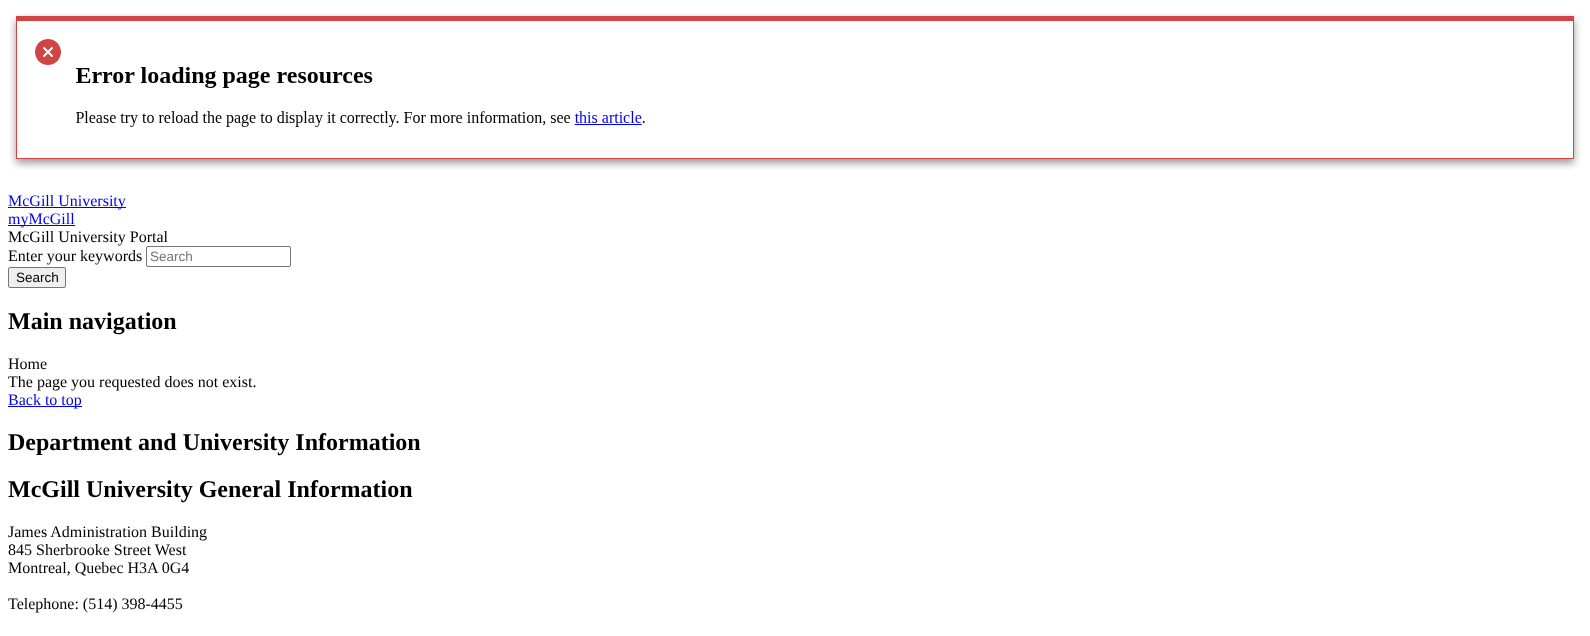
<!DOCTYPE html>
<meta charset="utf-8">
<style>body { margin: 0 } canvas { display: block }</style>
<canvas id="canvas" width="1590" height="636"></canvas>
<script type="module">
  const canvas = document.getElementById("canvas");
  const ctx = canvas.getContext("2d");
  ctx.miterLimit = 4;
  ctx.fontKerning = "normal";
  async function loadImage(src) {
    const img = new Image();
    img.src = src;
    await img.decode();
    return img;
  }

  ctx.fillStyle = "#ffffff";
  ctx.fillRect(0, 0, 1590, 636);
  ctx.drawImage(await loadImage("img1.png"), 9, 13, 1572, 157);
  ctx.fillStyle = "#0000ee";
  ctx.fillRect(8, 207, 118, 1);
  ctx.font = "16px Liberation Serif";
  ctx.fillText("McGill University", 8, 206);
  ctx.fillRect(8, 225, 67, 1);
  ctx.fillText("myMcGill", 8, 224);
  ctx.fillStyle = "#000000";
  ctx.fillText("McGill University Portal", 8, 242);
  ctx.fillText("Enter your keywords", 8, 261);
  ctx.beginPath();
  ctx.roundRect(146.5, 246.5, 144, 20, 1.5);
  ctx.strokeStyle = "#767676";
  ctx.stroke();
  ctx.font = "13.5px Liberation Sans";
  ctx.fillStyle = "#757575";
  ctx.fillText("Search", 150, 261);
  ctx.fillStyle = "#efefef";
  ctx.beginPath();
  ctx.roundRect(8.5, 267.5, 57, 20, 1.5);
  ctx.fill();
  ctx.stroke();
  ctx.fillStyle = "#000000";
  ctx.fillText("Search", 16, 282);
  ctx.font = "bold 24px Liberation Serif";
  ctx.fillText("Main navigation", 8, 329);
  ctx.font = "16px Liberation Serif";
  ctx.fillText("Home", 8, 369);
  ctx.fillText("The page you requested does not exist.", 8, 387);
  ctx.fillStyle = "#0000ee";
  ctx.fillRect(8, 406, 74, 1);
  ctx.fillText("Back to top", 8, 405);
  ctx.font = "bold 24px Liberation Serif";
  ctx.fillStyle = "#000000";
  ctx.fillText("Department and University Information", 8, 450);
  ctx.fillText("McGill University General Information", 8, 497);
  ctx.font = "16px Liberation Serif";
  ctx.fillText("James Administration Building", 8, 537);
  ctx.fillText("845 Sherbrooke Street West", 8, 555);
  ctx.fillText("Montreal, Quebec H3A 0G4", 8, 573);
  ctx.fillText("Telephone: (514) 398-4455", 8, 609);
</script>
